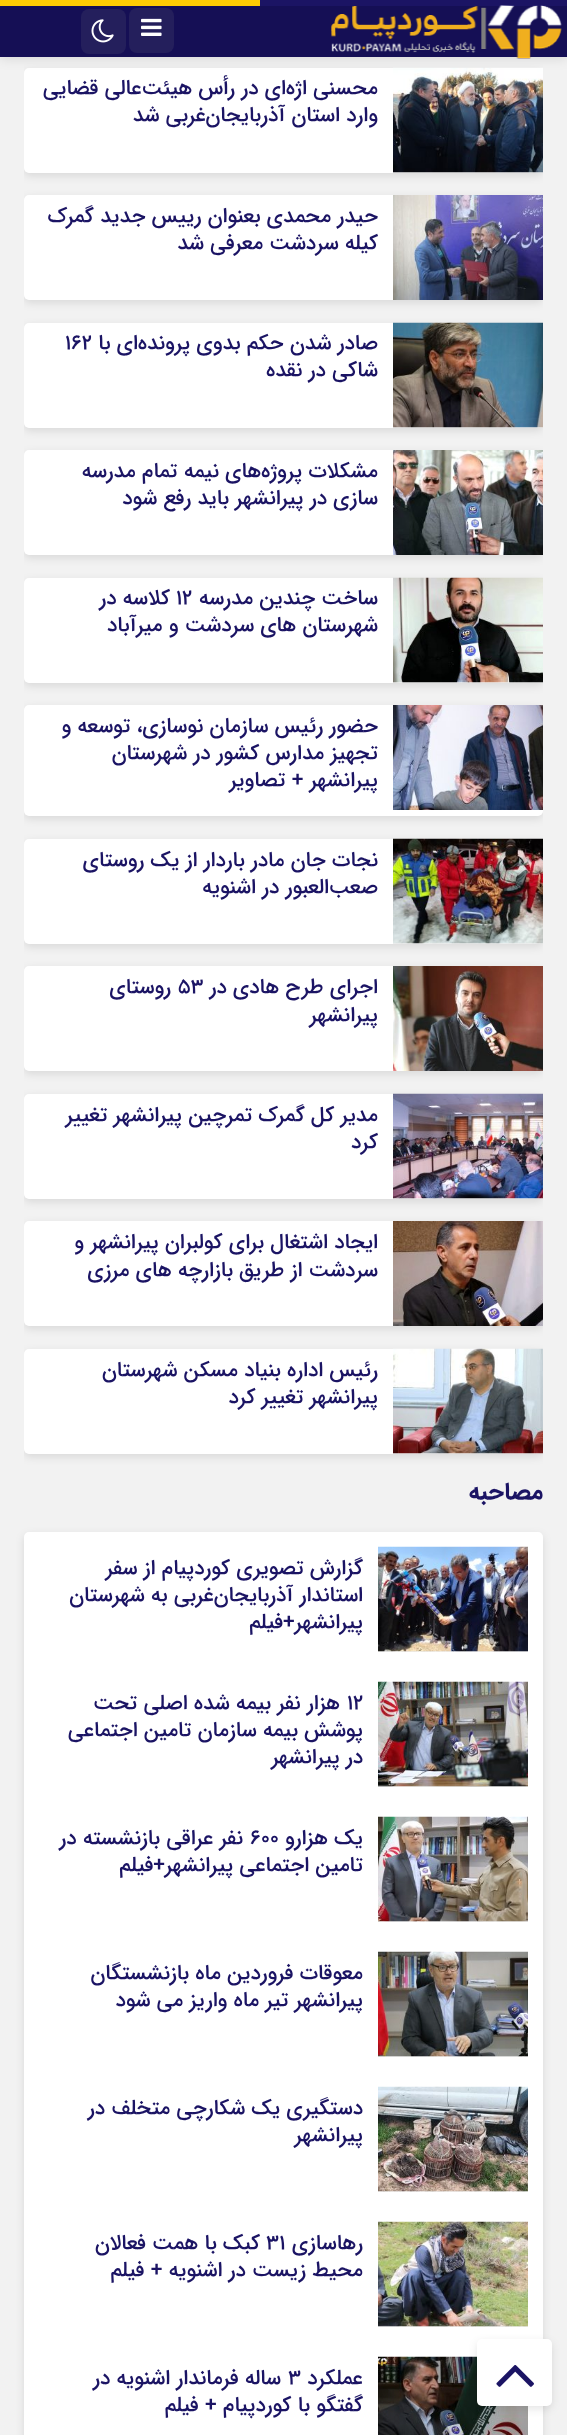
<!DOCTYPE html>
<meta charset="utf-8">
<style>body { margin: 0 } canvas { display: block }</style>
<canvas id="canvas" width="567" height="2435"></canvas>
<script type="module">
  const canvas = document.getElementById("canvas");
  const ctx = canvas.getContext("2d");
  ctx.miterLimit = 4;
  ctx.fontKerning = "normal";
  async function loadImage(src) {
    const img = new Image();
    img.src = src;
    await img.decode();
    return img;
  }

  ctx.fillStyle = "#f2f2f2";
  ctx.fillRect(0, 0, 567, 2435);
  ctx.save();
  ctx.beginPath();
  ctx.rect(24, 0, 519, 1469);
  ctx.clip();
  ctx.fillStyle = "rgba(0, 0, 0, 0.1)";
  ctx.filter = "blur(4.5px)";
  ctx.beginPath();
  ctx.roundRect(24, 71, 519, 105, 5);
  ctx.fill();
  ctx.filter = "none";
  ctx.restore();
  ctx.fillStyle = "#ffffff";
  ctx.beginPath();
  ctx.roundRect(24, 68, 519, 105, 5);
  ctx.fill();
  ctx.fillStyle = "#eeeeee";
  ctx.fillRect(393, 172, 150, 1);
  ctx.drawImage(await loadImage("img4.png"), 393, 67, 150, 106);
  ctx.fillStyle = "rgba(0, 0, 0, 0.1)";
  ctx.filter = "blur(6px)";
  ctx.beginPath();
  ctx.rect(0, -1, 567, 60);
  ctx.fill();
  ctx.filter = "none";
  ctx.fillStyle = "#150f55";
  ctx.fillRect(0, 6, 567, 51);
  ctx.fillStyle = "#1b1464";
  ctx.fillRect(260, 0, 307, 6);
  ctx.fillStyle = "#ffcc03";
  ctx.fillRect(0, 0, 260, 6);
  ctx.fillStyle = "#241f5c";
  ctx.beginPath();
  ctx.roundRect(129, 8, 45, 45, 8);
  ctx.fill();
  ctx.drawImage(await loadImage("img1.png"), 141, 18, 21, 18);
  ctx.beginPath();
  ctx.roundRect(81, 9, 45, 45, 8);
  ctx.fill();
  ctx.drawImage(await loadImage("img2.png"), 91, 19, 23, 24);
  ctx.drawImage(await loadImage("img3.png"), 331, 5, 231, 54);
  ctx.direction = "rtl";
  ctx.font = "500 21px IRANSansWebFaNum";
  ctx.fillStyle = "#1b1464";
  ctx.fillText("محسنی اژه‌ای در رأس هیئت‌عالی قضایی", 378, 94);
  ctx.fillText("وارد استان آذربایجان‌غربی شد", 378, 121);
  ctx.save();
  ctx.beginPath();
  ctx.rect(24, 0, 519, 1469);
  ctx.clip();
  ctx.fillStyle = "rgba(0, 0, 0, 0.1)";
  ctx.filter = "blur(4.5px)";
  ctx.beginPath();
  ctx.roundRect(24, 198, 519, 105, 5);
  ctx.fill();
  ctx.filter = "none";
  ctx.restore();
  ctx.fillStyle = "#ffffff";
  ctx.beginPath();
  ctx.roundRect(24, 195, 519, 105, 5);
  ctx.fill();
  ctx.drawImage(await loadImage("img5.png"), 393, 195, 150, 105);
  ctx.fillStyle = "#1b1464";
  ctx.fillText("حیدر محمدی بعنوان رییس جدید گمرک", 378, 222);
  ctx.fillText("کیله سردشت معرفی شد", 378, 249);
  ctx.save();
  ctx.beginPath();
  ctx.rect(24, 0, 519, 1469);
  ctx.clip();
  ctx.fillStyle = "rgba(0, 0, 0, 0.1)";
  ctx.filter = "blur(4.5px)";
  ctx.beginPath();
  ctx.roundRect(24, 326, 519, 105, 5);
  ctx.fill();
  ctx.filter = "none";
  ctx.restore();
  ctx.fillStyle = "#ffffff";
  ctx.beginPath();
  ctx.roundRect(24, 323, 519, 105, 5);
  ctx.fill();
  ctx.fillStyle = "#eeeeee";
  ctx.fillRect(393, 427, 150, 1);
  ctx.drawImage(await loadImage("img6.png"), 393, 322, 150, 106);
  ctx.fillStyle = "#1b1464";
  ctx.fillText("صادر شدن حکم بدوی پرونده‌ای با", 378, 349);
  ctx.direction = "ltr";
  ctx.fillText("۱۶۲", 65, 349);
  ctx.direction = "rtl";
  ctx.fillText("شاکی در نقده", 378, 376);
  ctx.save();
  ctx.beginPath();
  ctx.rect(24, 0, 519, 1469);
  ctx.clip();
  ctx.fillStyle = "rgba(0, 0, 0, 0.1)";
  ctx.filter = "blur(4.5px)";
  ctx.beginPath();
  ctx.roundRect(24, 453, 519, 105, 5);
  ctx.fill();
  ctx.filter = "none";
  ctx.restore();
  ctx.fillStyle = "#ffffff";
  ctx.beginPath();
  ctx.roundRect(24, 450, 519, 105, 5);
  ctx.fill();
  ctx.drawImage(await loadImage("img7.png"), 393, 450, 150, 105);
  ctx.fillStyle = "#1b1464";
  ctx.fillText("مشکلات پروژه‌های نیمه تمام مدرسه", 378, 477);
  ctx.fillText("سازی در پیرانشهر باید رفع شود", 378, 504);
  ctx.save();
  ctx.beginPath();
  ctx.rect(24, 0, 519, 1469);
  ctx.clip();
  ctx.fillStyle = "rgba(0, 0, 0, 0.1)";
  ctx.filter = "blur(4.5px)";
  ctx.beginPath();
  ctx.roundRect(24, 581, 519, 105, 5);
  ctx.fill();
  ctx.filter = "none";
  ctx.restore();
  ctx.fillStyle = "#ffffff";
  ctx.beginPath();
  ctx.roundRect(24, 578, 519, 105, 5);
  ctx.fill();
  ctx.fillStyle = "#eeeeee";
  ctx.fillRect(393, 682, 150, 1);
  ctx.drawImage(await loadImage("img8.png"), 393, 577, 150, 106);
  ctx.fillStyle = "#1b1464";
  ctx.fillText("ساخت چندین مدرسه", 378, 604);
  ctx.direction = "ltr";
  ctx.fillText("۱۲", 176, 604);
  ctx.direction = "rtl";
  ctx.fillText("کلاسه در", 170, 604);
  ctx.fillText("شهرستان های سردشت و میرآباد", 378, 631);
  ctx.save();
  ctx.beginPath();
  ctx.rect(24, 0, 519, 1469);
  ctx.clip();
  ctx.fillStyle = "rgba(0, 0, 0, 0.1)";
  ctx.filter = "blur(4.5px)";
  ctx.beginPath();
  ctx.roundRect(24, 708, 519, 111, 5);
  ctx.fill();
  ctx.filter = "none";
  ctx.restore();
  ctx.fillStyle = "#ffffff";
  ctx.beginPath();
  ctx.roundRect(24, 705, 519, 111, 5);
  ctx.fill();
  ctx.drawImage(await loadImage("img9.png"), 393, 705, 150, 105);
  ctx.fillStyle = "#1b1464";
  ctx.fillText("حضور رئیس سازمان نوسازی، توسعه و", 378, 732);
  ctx.fillText("تجهیز مدارس کشور در شهرستان", 378, 759);
  ctx.fillText("پیرانشهر + تصاویر", 378, 786);
  ctx.save();
  ctx.beginPath();
  ctx.rect(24, 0, 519, 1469);
  ctx.clip();
  ctx.fillStyle = "rgba(0, 0, 0, 0.1)";
  ctx.filter = "blur(4.5px)";
  ctx.beginPath();
  ctx.roundRect(24, 842, 519, 105, 5);
  ctx.fill();
  ctx.filter = "none";
  ctx.restore();
  ctx.fillStyle = "#ffffff";
  ctx.beginPath();
  ctx.roundRect(24, 839, 519, 105, 5);
  ctx.fill();
  ctx.fillStyle = "#eeeeee";
  ctx.fillRect(393, 943, 150, 1);
  ctx.drawImage(await loadImage("img10.png"), 393, 838, 150, 106);
  ctx.fillStyle = "#1b1464";
  ctx.fillText("نجات جان مادر باردار از یک روستای", 378, 866);
  ctx.fillText("صعب‌العبور در اشنویه", 378, 893);
  ctx.save();
  ctx.beginPath();
  ctx.rect(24, 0, 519, 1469);
  ctx.clip();
  ctx.fillStyle = "rgba(0, 0, 0, 0.1)";
  ctx.filter = "blur(4.5px)";
  ctx.beginPath();
  ctx.roundRect(24, 969, 519, 105, 5);
  ctx.fill();
  ctx.filter = "none";
  ctx.restore();
  ctx.fillStyle = "#ffffff";
  ctx.beginPath();
  ctx.roundRect(24, 966, 519, 105, 5);
  ctx.fill();
  ctx.drawImage(await loadImage("img11.png"), 393, 966, 150, 105);
  ctx.fillStyle = "#1b1464";
  ctx.fillText("اجرای طرح هادی در", 378, 993);
  ctx.direction = "ltr";
  ctx.fillText("۵۳", 178, 993);
  ctx.direction = "rtl";
  ctx.fillText("روستای", 171, 993);
  ctx.fillText("پیرانشهر", 378, 1021);
  ctx.save();
  ctx.beginPath();
  ctx.rect(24, 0, 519, 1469);
  ctx.clip();
  ctx.fillStyle = "rgba(0, 0, 0, 0.1)";
  ctx.filter = "blur(4.5px)";
  ctx.beginPath();
  ctx.roundRect(24, 1097, 519, 105, 5);
  ctx.fill();
  ctx.filter = "none";
  ctx.restore();
  ctx.fillStyle = "#ffffff";
  ctx.beginPath();
  ctx.roundRect(24, 1094, 519, 105, 5);
  ctx.fill();
  ctx.fillStyle = "#eeeeee";
  ctx.fillRect(393, 1198, 150, 1);
  ctx.drawImage(await loadImage("img12.png"), 393, 1093, 150, 106);
  ctx.fillStyle = "#1b1464";
  ctx.fillText("مدیر کل گمرک تمرچین پیرانشهر تغییر", 378, 1121);
  ctx.fillText("کرد", 378, 1148);
  ctx.save();
  ctx.beginPath();
  ctx.rect(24, 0, 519, 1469);
  ctx.clip();
  ctx.fillStyle = "rgba(0, 0, 0, 0.1)";
  ctx.filter = "blur(4.5px)";
  ctx.beginPath();
  ctx.roundRect(24, 1224, 519, 105, 5);
  ctx.fill();
  ctx.filter = "none";
  ctx.restore();
  ctx.fillStyle = "#ffffff";
  ctx.beginPath();
  ctx.roundRect(24, 1221, 519, 105, 5);
  ctx.fill();
  ctx.drawImage(await loadImage("img13.png"), 393, 1221, 150, 105);
  ctx.fillStyle = "#1b1464";
  ctx.fillText("ایجاد اشتغال برای کولبران پیرانشهر و", 378, 1248);
  ctx.fillText("سردشت از طریق بازارچه های مرزی", 378, 1276);
  ctx.save();
  ctx.beginPath();
  ctx.rect(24, 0, 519, 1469);
  ctx.clip();
  ctx.fillStyle = "rgba(0, 0, 0, 0.1)";
  ctx.filter = "blur(4.5px)";
  ctx.beginPath();
  ctx.roundRect(24, 1352, 519, 105, 5);
  ctx.fill();
  ctx.filter = "none";
  ctx.restore();
  ctx.fillStyle = "#ffffff";
  ctx.beginPath();
  ctx.roundRect(24, 1349, 519, 105, 5);
  ctx.fill();
  ctx.fillStyle = "#eeeeee";
  ctx.fillRect(393, 1453, 150, 1);
  ctx.drawImage(await loadImage("img14.png"), 393, 1348, 150, 106);
  ctx.fillStyle = "#1b1464";
  ctx.fillText("رئیس اداره بنیاد مسکن شهرستان", 378, 1376);
  ctx.fillText("پیرانشهر تغییر کرد", 378, 1403);
  ctx.font = "bold 24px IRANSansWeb";
  ctx.fillText("مصاحبه", 543, 1499);
  ctx.fillStyle = "rgba(0, 0, 0, 0.1)";
  ctx.filter = "blur(4.5px)";
  ctx.beginPath();
  ctx.roundRect(24, 1535, 519, 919, 5);
  ctx.fill();
  ctx.filter = "none";
  ctx.fillStyle = "#ffffff";
  ctx.beginPath();
  ctx.roundRect(24, 1532, 519, 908, 5);
  ctx.fill();
  ctx.fillStyle = "#eeeeee";
  ctx.fillRect(378, 1651, 150, 1);
  ctx.drawImage(await loadImage("img15.png"), 378, 1546, 150, 106);
  ctx.font = "500 21px IRANSansWebFaNum";
  ctx.fillStyle = "#1b1464";
  ctx.fillText("گزارش تصویری کوردپیام از سفر", 363, 1574);
  ctx.fillText("استاندار آذربایجان‌غربی به شهرستان", 363, 1601);
  ctx.fillText("پیرانشهر+فیلم", 363, 1628);
  ctx.fillStyle = "#eeeeee";
  ctx.fillRect(378, 1786, 150, 1);
  ctx.drawImage(await loadImage("img16.png"), 378, 1681, 150, 106);
  ctx.direction = "ltr";
  ctx.fillStyle = "#1b1464";
  ctx.fillText("۱۲", 347, 1709);
  ctx.direction = "rtl";
  ctx.fillText("هزار نفر بیمه شده اصلی تحت", 340, 1709);
  ctx.fillText("پوشش بیمه سازمان تامین اجتماعی", 363, 1736);
  ctx.fillText("در پیرانشهر", 363, 1763);
  ctx.fillStyle = "#eeeeee";
  ctx.fillRect(378, 1921, 150, 1);
  ctx.drawImage(await loadImage("img17.png"), 378, 1816, 150, 106);
  ctx.fillStyle = "#1b1464";
  ctx.fillText("یک هزارو", 363, 1844);
  ctx.direction = "ltr";
  ctx.fillText("۶۰۰", 250, 1844);
  ctx.direction = "rtl";
  ctx.fillText("نفر عراقی بازنشسته در", 243, 1844);
  ctx.fillText("تامین اجتماعی پیرانشهر+فیلم", 363, 1871);
  ctx.fillStyle = "#eeeeee";
  ctx.fillRect(378, 2056, 150, 1);
  ctx.drawImage(await loadImage("img18.png"), 378, 1951, 150, 106);
  ctx.fillStyle = "#1b1464";
  ctx.fillText("معوقات فروردین ماه بازنشستگان", 363, 1979);
  ctx.fillText("پیرانشهر تیر ماه واریز می شود", 363, 2006);
  ctx.fillStyle = "#eeeeee";
  ctx.fillRect(378, 2191, 150, 1);
  ctx.drawImage(await loadImage("img19.png"), 378, 2086, 150, 106);
  ctx.fillStyle = "#1b1464";
  ctx.fillText("دستگیری یک شکارچی متخلف در", 363, 2114);
  ctx.fillText("پیرانشهر", 363, 2141);
  ctx.fillStyle = "#eeeeee";
  ctx.fillRect(378, 2326, 150, 1);
  ctx.drawImage(await loadImage("img20.png"), 378, 2221, 150, 106);
  ctx.fillStyle = "#1b1464";
  ctx.fillText("رهاسازی", 363, 2249);
  ctx.direction = "ltr";
  ctx.fillText("۳۱", 266, 2249);
  ctx.direction = "rtl";
  ctx.fillText("کبک با همت فعالان", 260, 2249);
  ctx.fillText("محیط زیست در اشنویه + فیلم", 363, 2276);
  ctx.drawImage(await loadImage("img21.png"), 378, 2356, 150, 79);
  ctx.fillText("عملکرد", 363, 2384);
  ctx.direction = "ltr";
  ctx.fillText("۳", 288, 2384);
  ctx.direction = "rtl";
  ctx.fillText("ساله فرماندار اشنویه در", 281, 2384);
  ctx.fillText("گفتگو با کوردپیام + فیلم", 363, 2411);
  ctx.fillStyle = "rgba(0, 0, 0, 0.1)";
  ctx.filter = "blur(4.5px)";
  ctx.beginPath();
  ctx.roundRect(477, 2342, 75, 67, 5);
  ctx.fill();
  ctx.filter = "none";
  ctx.fillStyle = "#ffffff";
  ctx.beginPath();
  ctx.roundRect(477, 2339, 75, 67, 5);
  ctx.fill();
  ctx.drawImage(await loadImage("img22.png"), 496, 2365, 38, 22);
</script>
